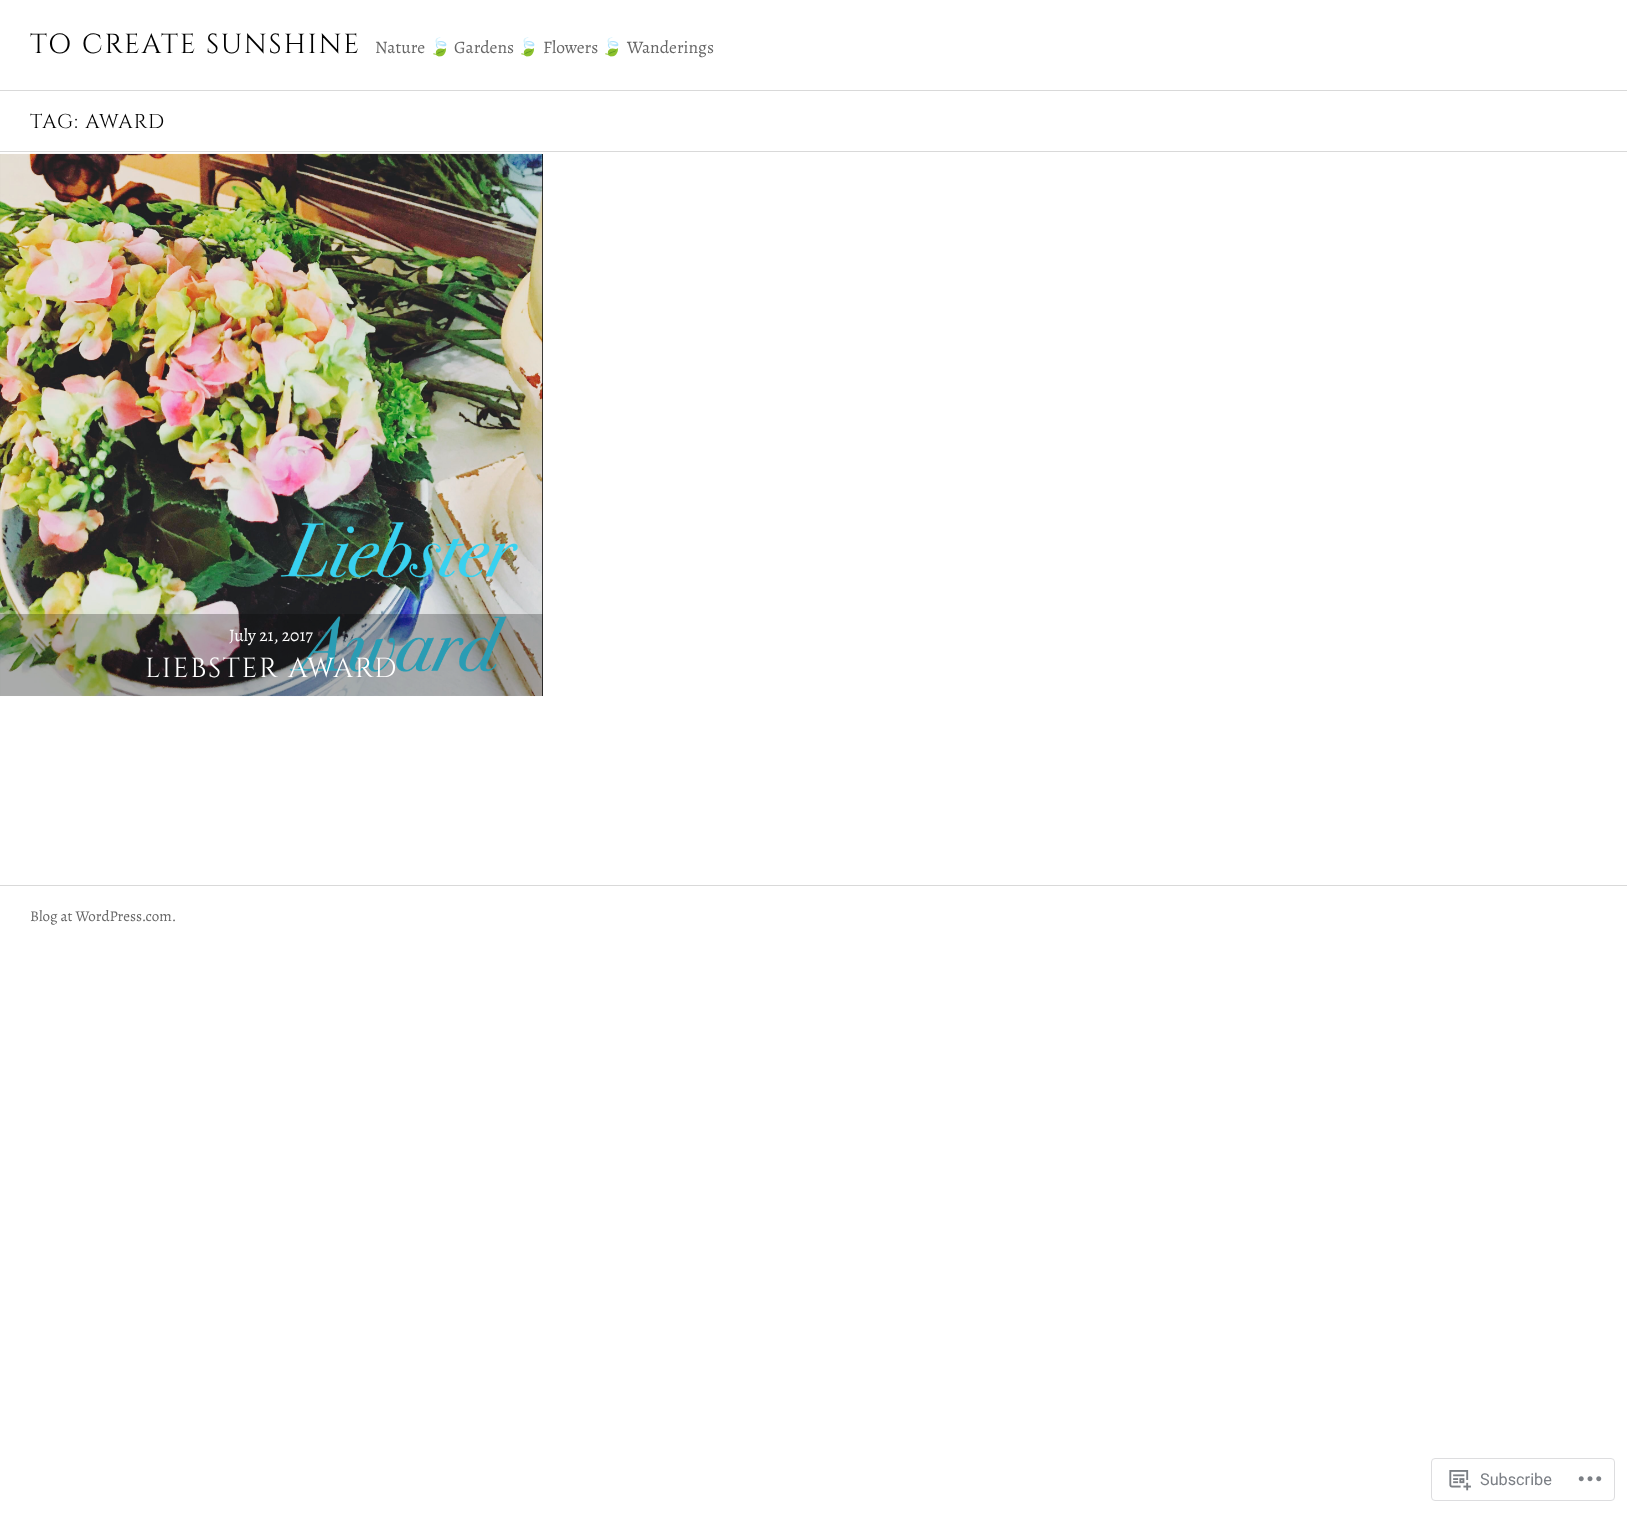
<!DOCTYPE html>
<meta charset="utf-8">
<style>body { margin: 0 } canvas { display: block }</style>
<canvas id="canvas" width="1627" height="1513"></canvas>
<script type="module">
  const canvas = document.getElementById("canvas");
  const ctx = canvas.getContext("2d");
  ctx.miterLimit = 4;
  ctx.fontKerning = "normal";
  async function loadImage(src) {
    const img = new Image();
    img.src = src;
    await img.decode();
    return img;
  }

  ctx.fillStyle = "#ffffff";
  ctx.fillRect(0, 0, 1627, 1513);
  ctx.fillStyle = "#d9d9d9";
  ctx.fillRect(0, 90, 1627, 1);
  ctx.letterSpacing = "1.75px";
  ctx.font = "27.5px Cinzel";
  ctx.fillStyle = "#000000";
  ctx.fillText("TO CREATE SUNSHINE", 30, 53);
  ctx.letterSpacing = "0px";
  ctx.font = "17.5px Alegreya";
  ctx.fillStyle = "#666666";
  ctx.fillText("Nature", 375, 53);
  ctx.font = "17.5px Noto Color Emoji";
  ctx.fillText("🍃", 429, 53);
  ctx.font = "17.5px Alegreya";
  ctx.fillText("Gardens", 454, 53);
  ctx.font = "17.5px Noto Color Emoji";
  ctx.fillText("🍃", 517, 53);
  ctx.font = "17.5px Alegreya";
  ctx.fillText("Flowers", 543, 53);
  ctx.font = "17.5px Noto Color Emoji";
  ctx.fillText("🍃", 601, 53);
  ctx.font = "17.5px Alegreya";
  ctx.fillText("Wanderings", 627, 53);
  ctx.fillStyle = "#d9d9d9";
  ctx.fillRect(0, 151, 1627, 1);
  ctx.letterSpacing = "1.25px";
  ctx.font = "20px Cinzel";
  ctx.fillStyle = "#000000";
  ctx.fillText("TAG: AWARD", 30, 128);
  ctx.fillRect(0, 154, 543, 542);
  ctx.drawImage(await loadImage("img1.png"), 0, 153, 543, 544);
  ctx.fillStyle = "rgba(0, 0, 0, 0.25)";
  ctx.fillRect(0, 614, 543, 82);
  ctx.letterSpacing = "0px";
  ctx.font = "17.5px Alegreya";
  ctx.fillStyle = "#ffffff";
  ctx.fillText("July 21, 2017", 229, 641);
  ctx.letterSpacing = "1.75px";
  ctx.font = "27.5px Cinzel";
  ctx.fillText("LIEBSTER AWARD", 145, 677);
  ctx.fillStyle = "#d9d9d9";
  ctx.fillRect(0, 885, 1627, 1);
  ctx.letterSpacing = "0px";
  ctx.font = "15px Alegreya";
  ctx.fillStyle = "#666666";
  ctx.fillText("Blog at WordPress.com.", 30, 921);
  ctx.beginPath();
  ctx.roundRect(1431.5, 1458.5, 183, 42, 3.5);
  ctx.strokeStyle = "#dddddf";
  ctx.stroke();
  ctx.drawImage(await loadImage("img2.png"), 1449, 1470, 22, 21);
  ctx.font = "16.25px Roboto";
  ctx.fillStyle = "#7b7f85";
  ctx.fillText("Subscribe", 1480, 1485);
  ctx.drawImage(await loadImage("img3.png"), 1578, 1476, 24, 6);
</script>
